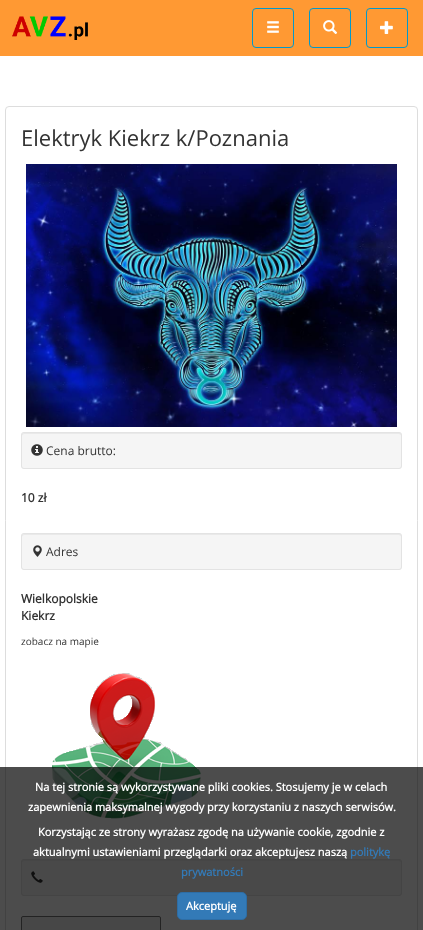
<!DOCTYPE html>
<meta charset="utf-8">
<style>body { margin: 0 } canvas { display: block }</style>
<canvas id="canvas" width="423" height="930"></canvas>
<script type="module">
  const canvas = document.getElementById("canvas");
  const ctx = canvas.getContext("2d");
  ctx.miterLimit = 4;
  ctx.fontKerning = "normal";
  async function loadImage(src) {
    const img = new Image();
    img.src = src;
    await img.decode();
    return img;
  }

  ctx.fillStyle = "#ffffff";
  ctx.fillRect(0, 0, 423, 930);
  ctx.fillStyle = "#ff9933";
  ctx.fillRect(0, 0, 423, 56);
  ctx.drawImage(await loadImage("img1.png"), 12, 16, 76, 24);
  ctx.beginPath();
  ctx.roundRect(252.5, 8.5, 41, 39, 3.5);
  ctx.strokeStyle = "#0099cc";
  ctx.stroke();
  ctx.drawImage(await loadImage("img2.png"), 267, 21, 12, 12);
  ctx.beginPath();
  ctx.roundRect(309.5, 8.5, 41, 39, 3.5);
  ctx.stroke();
  ctx.drawImage(await loadImage("img3.png"), 323, 20, 15, 14);
  ctx.beginPath();
  ctx.roundRect(366.5, 8.5, 41, 39, 3.5);
  ctx.stroke();
  ctx.drawImage(await loadImage("img4.png"), 380, 21, 13, 13);
  ctx.beginPath();
  ctx.roundRect(5.5, 106.5, 412, 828, 3.5);
  ctx.strokeStyle = "#dddddd";
  ctx.stroke();
  ctx.font = "22px Open Sans";
  ctx.fillStyle = "#333333";
  ctx.fillText("Elektryk Kiekrz k/Poznania", 21, 146);
  ctx.drawImage(await loadImage("img5.png"), 26, 164, 371, 263);
  ctx.fillStyle = "#f5f5f5";
  ctx.beginPath();
  ctx.roundRect(21, 432, 381, 37, 3);
  ctx.fill();
  ctx.fillStyle = "#e9e9e9";
  ctx.beginPath();
  ctx.moveTo(24, 434);
  ctx.lineTo(399, 434);
  ctx.bezierCurveTo(400, 434, 401, 435, 401, 436);
  ctx.bezierCurveTo(401, 435, 401, 434, 400, 433);
  ctx.lineTo(24, 433);
  ctx.lineTo(22, 434);
  ctx.lineTo(22, 436);
  ctx.bezierCurveTo(22, 435, 23, 434, 24, 434);
  ctx.closePath();
  ctx.fill();
  ctx.beginPath();
  ctx.roundRect(21.5, 432.5, 380, 36, 2.5);
  ctx.strokeStyle = "#e3e3e3";
  ctx.stroke();
  ctx.drawImage(await loadImage("img6.png"), 31, 444, 12, 12);
  ctx.font = "12px Open Sans";
  ctx.fillStyle = "#333333";
  ctx.fillText("Cena brutto:", 46, 455);
  ctx.font = "bold 12px Open Sans";
  ctx.fillText("10 zł", 21, 502);
  ctx.fillStyle = "#f5f5f5";
  ctx.beginPath();
  ctx.roundRect(21, 533, 381, 37, 3);
  ctx.fill();
  ctx.fillStyle = "#e9e9e9";
  ctx.beginPath();
  ctx.moveTo(24, 535);
  ctx.lineTo(399, 535);
  ctx.bezierCurveTo(400, 535, 401, 536, 401, 537);
  ctx.bezierCurveTo(401, 536, 401, 535, 400, 534);
  ctx.lineTo(24, 534);
  ctx.lineTo(22, 535);
  ctx.lineTo(22, 537);
  ctx.bezierCurveTo(22, 536, 23, 535, 24, 535);
  ctx.closePath();
  ctx.fill();
  ctx.beginPath();
  ctx.roundRect(21.5, 533.5, 380, 36, 2.5);
  ctx.stroke();
  ctx.drawImage(await loadImage("img7.png"), 33, 545, 9, 12);
  ctx.font = "12px Open Sans";
  ctx.fillStyle = "#333333";
  ctx.fillText("Adres", 46, 556);
  ctx.font = "bold 12px Open Sans";
  ctx.fillText("Wielkopolskie", 21, 603);
  ctx.fillText("Kiekrz", 21, 620);
  ctx.font = "10px Open Sans";
  ctx.fillText("zobacz na mapie", 21, 645);
  ctx.drawImage(await loadImage("img8.png"), 52, 673, 149, 146);
  ctx.fillStyle = "#f5f5f5";
  ctx.beginPath();
  ctx.roundRect(21, 859, 381, 37, 3);
  ctx.fill();
  ctx.fillStyle = "#e9e9e9";
  ctx.beginPath();
  ctx.moveTo(24, 861);
  ctx.lineTo(399, 861);
  ctx.bezierCurveTo(400, 861, 401, 862, 401, 863);
  ctx.bezierCurveTo(401, 862, 401, 861, 400, 860);
  ctx.lineTo(24, 860);
  ctx.lineTo(22, 861);
  ctx.lineTo(22, 863);
  ctx.bezierCurveTo(22, 862, 23, 861, 24, 861);
  ctx.closePath();
  ctx.fill();
  ctx.beginPath();
  ctx.roundRect(21.5, 859.5, 380, 36, 2.5);
  ctx.stroke();
  ctx.drawImage(await loadImage("img9.png"), 31, 871, 12, 12);
  ctx.fillStyle = "#efefef";
  ctx.beginPath();
  ctx.roundRect(21.5, 916.5, 139, 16, 1.5);
  ctx.fill();
  ctx.strokeStyle = "#767676";
  ctx.stroke();
  ctx.fillStyle = "rgba(0, 0, 0, 0.7)";
  ctx.fillRect(0, 767, 423, 163);
  ctx.font = "bold 11px Open Sans";
  ctx.fillStyle = "#ffffff";
  ctx.fillText("Na tej stronie są wykorzystywane pliki cookies. Stosujemy je w celach", 35, 791);
  ctx.fillText("zapewnienia maksymalnej wygody przy korzystaniu z naszych serwisów.", 28, 811);
  ctx.fillText("Korzystając ze strony wyrażasz zgodę na używanie cookie, zgodnie z", 38, 836);
  ctx.fillText("aktualnymi ustawieniami przeglądarki oraz akceptujesz naszą", 33, 856);
  ctx.fillStyle = "#337ab7";
  ctx.fillText("politykę", 350, 856);
  ctx.fillText("prywatności", 181, 876);
  ctx.beginPath();
  ctx.roundRect(177.5, 892.5, 69, 27, 4.5);
  ctx.fill();
  ctx.strokeStyle = "#2e6da4";
  ctx.stroke();
  ctx.fillStyle = "#ffffff";
  ctx.fillText("Akceptuję", 186, 910);
</script>
